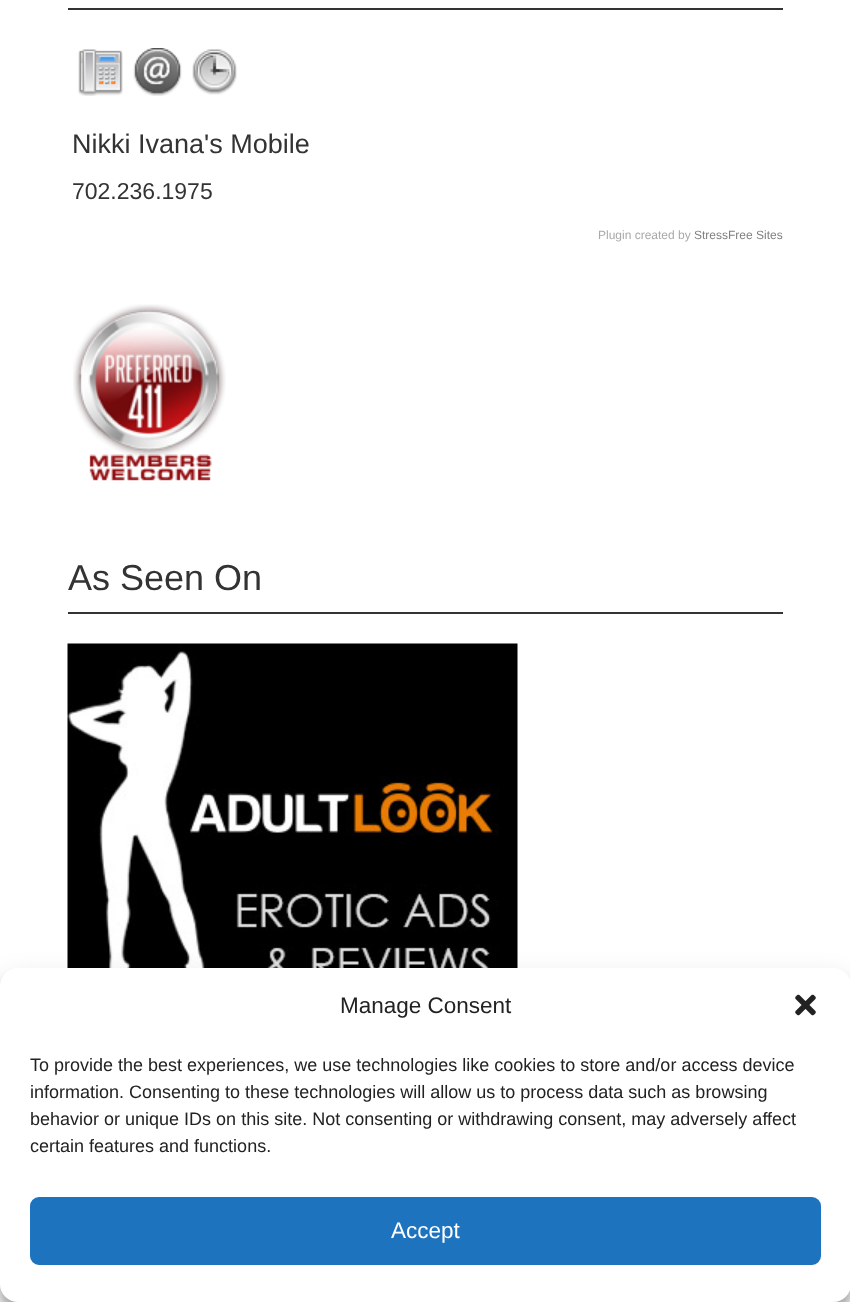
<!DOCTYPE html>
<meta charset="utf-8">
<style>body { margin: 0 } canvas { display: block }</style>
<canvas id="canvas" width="850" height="1302"></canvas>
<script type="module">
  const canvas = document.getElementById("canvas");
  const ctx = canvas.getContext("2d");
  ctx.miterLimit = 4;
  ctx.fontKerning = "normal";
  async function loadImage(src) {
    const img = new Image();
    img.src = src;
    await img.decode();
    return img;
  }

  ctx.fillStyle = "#ffffff";
  ctx.fillRect(0, 0, 850, 1302);
  ctx.fillStyle = "#333333";
  ctx.fillRect(68, 8, 715, 2);
  ctx.drawImage(await loadImage("img1.png"), 78, 49, 45, 47);
  ctx.drawImage(await loadImage("img2.png"), 133, 48, 49, 48);
  ctx.drawImage(await loadImage("img3.png"), 192, 49, 45, 46);
  ctx.font = "27px Liberation Sans";
  ctx.fillText("Nikki Ivana's Mobile", 72, 153);
  ctx.font = "23px Liberation Sans";
  ctx.fillText("702.236.1975", 72, 199);
  ctx.font = "12px Liberation Sans";
  ctx.fillStyle = "#a9a9a9";
  ctx.fillText("Plugin created by", 598, 239);
  ctx.fillStyle = "#808080";
  ctx.fillText("StressFree Sites", 694, 239);
  ctx.drawImage(await loadImage("img4.png"), 73, 304, 153, 177);
  ctx.fillStyle = "#333333";
  ctx.fillRect(68, 612, 715, 2);
  ctx.font = "36px Liberation Sans";
  ctx.fillText("As Seen On", 68, 590);
  ctx.drawImage(await loadImage("img5.png"), 67, 643, 451, 325);
  ctx.fillStyle = "rgba(0, 0, 0, 0.23)";
  ctx.filter = "blur(4.5px)";
  ctx.beginPath();
  ctx.roundRect(0, 977, 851, 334, 18);
  ctx.fill();
  ctx.filter = "none";
  ctx.fillStyle = "rgba(0, 0, 0, 0.19)";
  ctx.filter = "blur(15px)";
  ctx.beginPath();
  ctx.roundRect(0, 983, 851, 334, 18);
  ctx.fill();
  ctx.filter = "none";
  ctx.fillStyle = "#ffffff";
  ctx.beginPath();
  ctx.roundRect(0, 968, 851, 334, 18);
  ctx.fill();
  ctx.font = "22.5px Liberation Sans";
  ctx.fillStyle = "#222222";
  ctx.fillText("Manage Consent", 340, 1013);
  ctx.drawImage(await loadImage("img6.png"), 795, 994, 21, 22);
  ctx.font = "18px Liberation Sans";
  ctx.fillText("To provide the best experiences, we use technologies like cookies to store and/or access device", 30, 1071);
  ctx.fillText("information. Consenting to these technologies will allow us to process data such as browsing", 30, 1098);
  ctx.fillText("behavior or unique IDs on this site. Not consenting or withdrawing consent, may adversely affect", 30, 1125);
  ctx.fillText("certain features and functions.", 30, 1152);
  ctx.fillStyle = "#1e73be";
  ctx.beginPath();
  ctx.roundRect(31, 1198, 789, 66, 8);
  ctx.fill();
  ctx.strokeStyle = "#1e73be";
  ctx.lineWidth = 2;
  ctx.stroke();
  ctx.font = "22.5px Liberation Sans";
  ctx.fillStyle = "#ffffff";
  ctx.fillText("Accept", 391, 1238);
</script>
